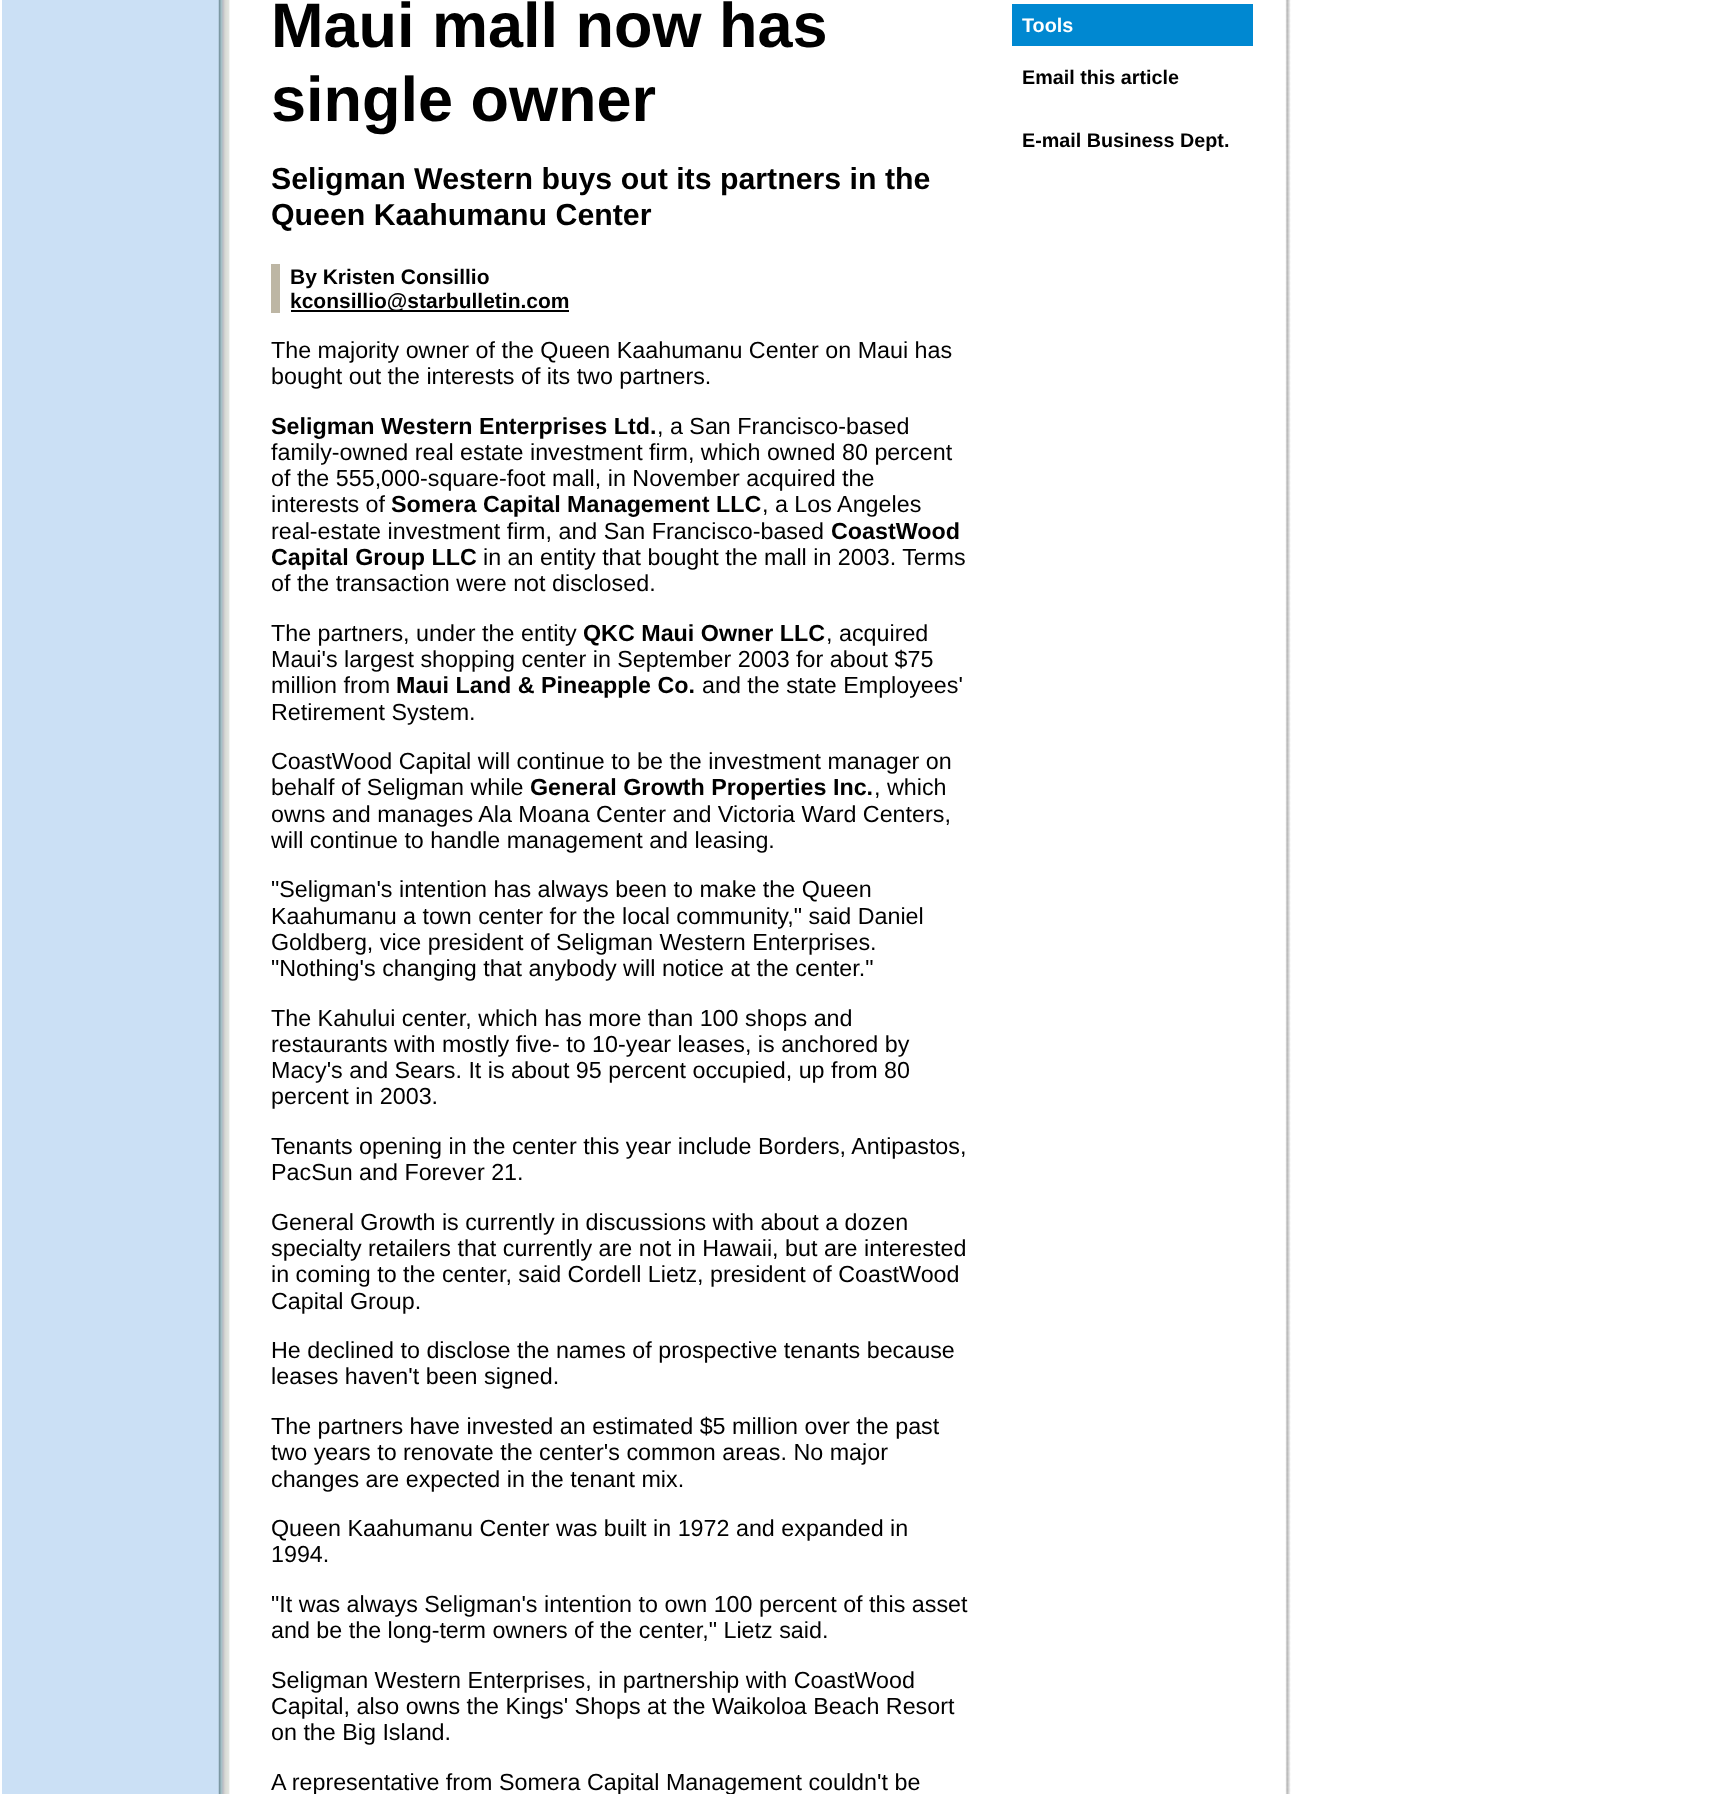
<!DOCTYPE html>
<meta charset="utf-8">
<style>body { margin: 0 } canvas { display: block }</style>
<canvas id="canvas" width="1709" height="1794"></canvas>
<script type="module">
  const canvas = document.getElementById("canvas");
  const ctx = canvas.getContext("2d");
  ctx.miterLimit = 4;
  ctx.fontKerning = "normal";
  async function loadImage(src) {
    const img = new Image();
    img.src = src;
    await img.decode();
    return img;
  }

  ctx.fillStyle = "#ffffff";
  ctx.fillRect(0, 0, 1709, 1794);
  ctx.fillStyle = "#cbe0f5";
  ctx.fillRect(2, 0, 217, 1794);
  ctx.drawImage(await loadImage("img1.png"), 218, 0, 12, 1794);
  ctx.font = "bold 63px Liberation Sans";
  ctx.fillStyle = "#000000";
  ctx.fillText("Maui mall now has", 271, 47);
  ctx.fillText("single owner", 271, 121);
  ctx.font = "bold 30.3px Liberation Sans";
  ctx.fillText("Seligman Western buys out its partners in the", 271, 189);
  ctx.fillText("Queen Kaahumanu Center", 271, 225);
  ctx.fillStyle = "#bdb6a4";
  ctx.fillRect(271, 264, 9, 49);
  ctx.font = "bold 21px Liberation Sans";
  ctx.fillStyle = "#000000";
  ctx.fillText("By Kristen Consillio", 290, 284);
  ctx.fillRect(291, 310, 278, 2);
  ctx.fillText("kconsillio@starbulletin.com", 290, 308);
  ctx.font = "23.3px Liberation Sans";
  ctx.fillText("The majority owner of the Queen Kaahumanu Center on Maui has", 271, 358);
  ctx.fillText("bought out the interests of its two partners.", 271, 384);
  ctx.font = "bold 23.3px Liberation Sans";
  ctx.fillText("Seligman Western Enterprises Ltd.", 271, 434);
  ctx.font = "23.3px Liberation Sans";
  ctx.fillText(", a San Francisco-based", 657, 434);
  ctx.fillText("family-owned real estate investment firm, which owned 80 percent", 271, 460);
  ctx.fillText("of the 555,000-square-foot mall, in November acquired the", 271, 486);
  ctx.fillText("interests of", 271, 512);
  ctx.font = "bold 23.3px Liberation Sans";
  ctx.fillText("Somera Capital Management LLC", 391, 512);
  ctx.font = "23.3px Liberation Sans";
  ctx.fillText(", a Los Angeles", 762, 512);
  ctx.fillText("real-estate investment firm, and San Francisco-based", 271, 539);
  ctx.font = "bold 23.3px Liberation Sans";
  ctx.fillText("CoastWood", 831, 539);
  ctx.fillText("Capital Group LLC", 271, 565);
  ctx.font = "23.3px Liberation Sans";
  ctx.fillText("in an entity that bought the mall in 2003. Terms", 483, 565);
  ctx.fillText("of the transaction were not disclosed.", 271, 591);
  ctx.fillText("The partners, under the entity", 271, 641);
  ctx.font = "bold 23.3px Liberation Sans";
  ctx.fillText("QKC Maui Owner LLC", 583, 641);
  ctx.font = "23.3px Liberation Sans";
  ctx.fillText(", acquired", 826, 641);
  ctx.fillText("Maui's largest shopping center in September 2003 for about $75", 271, 667);
  ctx.fillText("million from", 271, 693);
  ctx.font = "bold 23.3px Liberation Sans";
  ctx.fillText("Maui Land & Pineapple Co.", 396, 693);
  ctx.font = "23.3px Liberation Sans";
  ctx.fillText("and the state Employees'", 702, 693);
  ctx.fillText("Retirement System.", 271, 720);
  ctx.fillText("CoastWood Capital will continue to be the investment manager on", 271, 769);
  ctx.fillText("behalf of Seligman while", 271, 795);
  ctx.font = "bold 23.3px Liberation Sans";
  ctx.fillText("General Growth Properties Inc.", 530, 795);
  ctx.font = "23.3px Liberation Sans";
  ctx.fillText(", which", 874, 795);
  ctx.fillText("owns and manages Ala Moana Center and Victoria Ward Centers,", 271, 822);
  ctx.fillText("will continue to handle management and leasing.", 271, 848);
  ctx.fillText("\"Seligman's intention has always been to make the Queen", 271, 897);
  ctx.fillText("Kaahumanu a town center for the local community,\" said Daniel", 271, 924);
  ctx.fillText("Goldberg, vice president of Seligman Western Enterprises.", 271, 950);
  ctx.fillText("\"Nothing's changing that anybody will notice at the center.\"", 271, 976);
  ctx.fillText("The Kahului center, which has more than 100 shops and", 271, 1026);
  ctx.fillText("restaurants with mostly five- to 10-year leases, is anchored by", 271, 1052);
  ctx.fillText("Macy's and Sears. It is about 95 percent occupied, up from 80", 271, 1078);
  ctx.fillText("percent in 2003.", 271, 1104);
  ctx.fillText("Tenants opening in the center this year include Borders, Antipastos,", 271, 1154);
  ctx.fillText("PacSun and Forever 21.", 271, 1180);
  ctx.fillText("General Growth is currently in discussions with about a dozen", 271, 1230);
  ctx.fillText("specialty retailers that currently are not in Hawaii, but are interested", 271, 1256);
  ctx.fillText("in coming to the center, said Cordell Lietz, president of CoastWood", 271, 1282);
  ctx.fillText("Capital Group.", 271, 1309);
  ctx.fillText("He declined to disclose the names of prospective tenants because", 271, 1358);
  ctx.fillText("leases haven't been signed.", 271, 1384);
  ctx.fillText("The partners have invested an estimated $5 million over the past", 271, 1434);
  ctx.fillText("two years to renovate the center's common areas. No major", 271, 1460);
  ctx.fillText("changes are expected in the tenant mix.", 271, 1487);
  ctx.fillText("Queen Kaahumanu Center was built in 1972 and expanded in", 271, 1536);
  ctx.fillText("1994.", 271, 1562);
  ctx.fillText("\"It was always Seligman's intention to own 100 percent of this asset", 271, 1612);
  ctx.fillText("and be the long-term owners of the center,\" Lietz said.", 271, 1638);
  ctx.fillText("Seligman Western Enterprises, in partnership with CoastWood", 271, 1688);
  ctx.fillText("Capital, also owns the Kings' Shops at the Waikoloa Beach Resort", 271, 1714);
  ctx.fillText("on the Big Island.", 271, 1740);
  ctx.fillText("A representative from Somera Capital Management couldn't be", 271, 1790);
  ctx.fillStyle = "#0088d1";
  ctx.fillRect(1012, 4, 241, 42);
  ctx.font = "bold 19.75px Liberation Sans";
  ctx.fillStyle = "#ffffff";
  ctx.fillText("Tools", 1022, 32);
  ctx.fillStyle = "#000000";
  ctx.fillText("Email this article", 1022, 84);
  ctx.fillText("E-mail Business Dept.", 1022, 147);
  ctx.drawImage(await loadImage("img2.png"), 1285, 0, 6, 1794);
</script>
